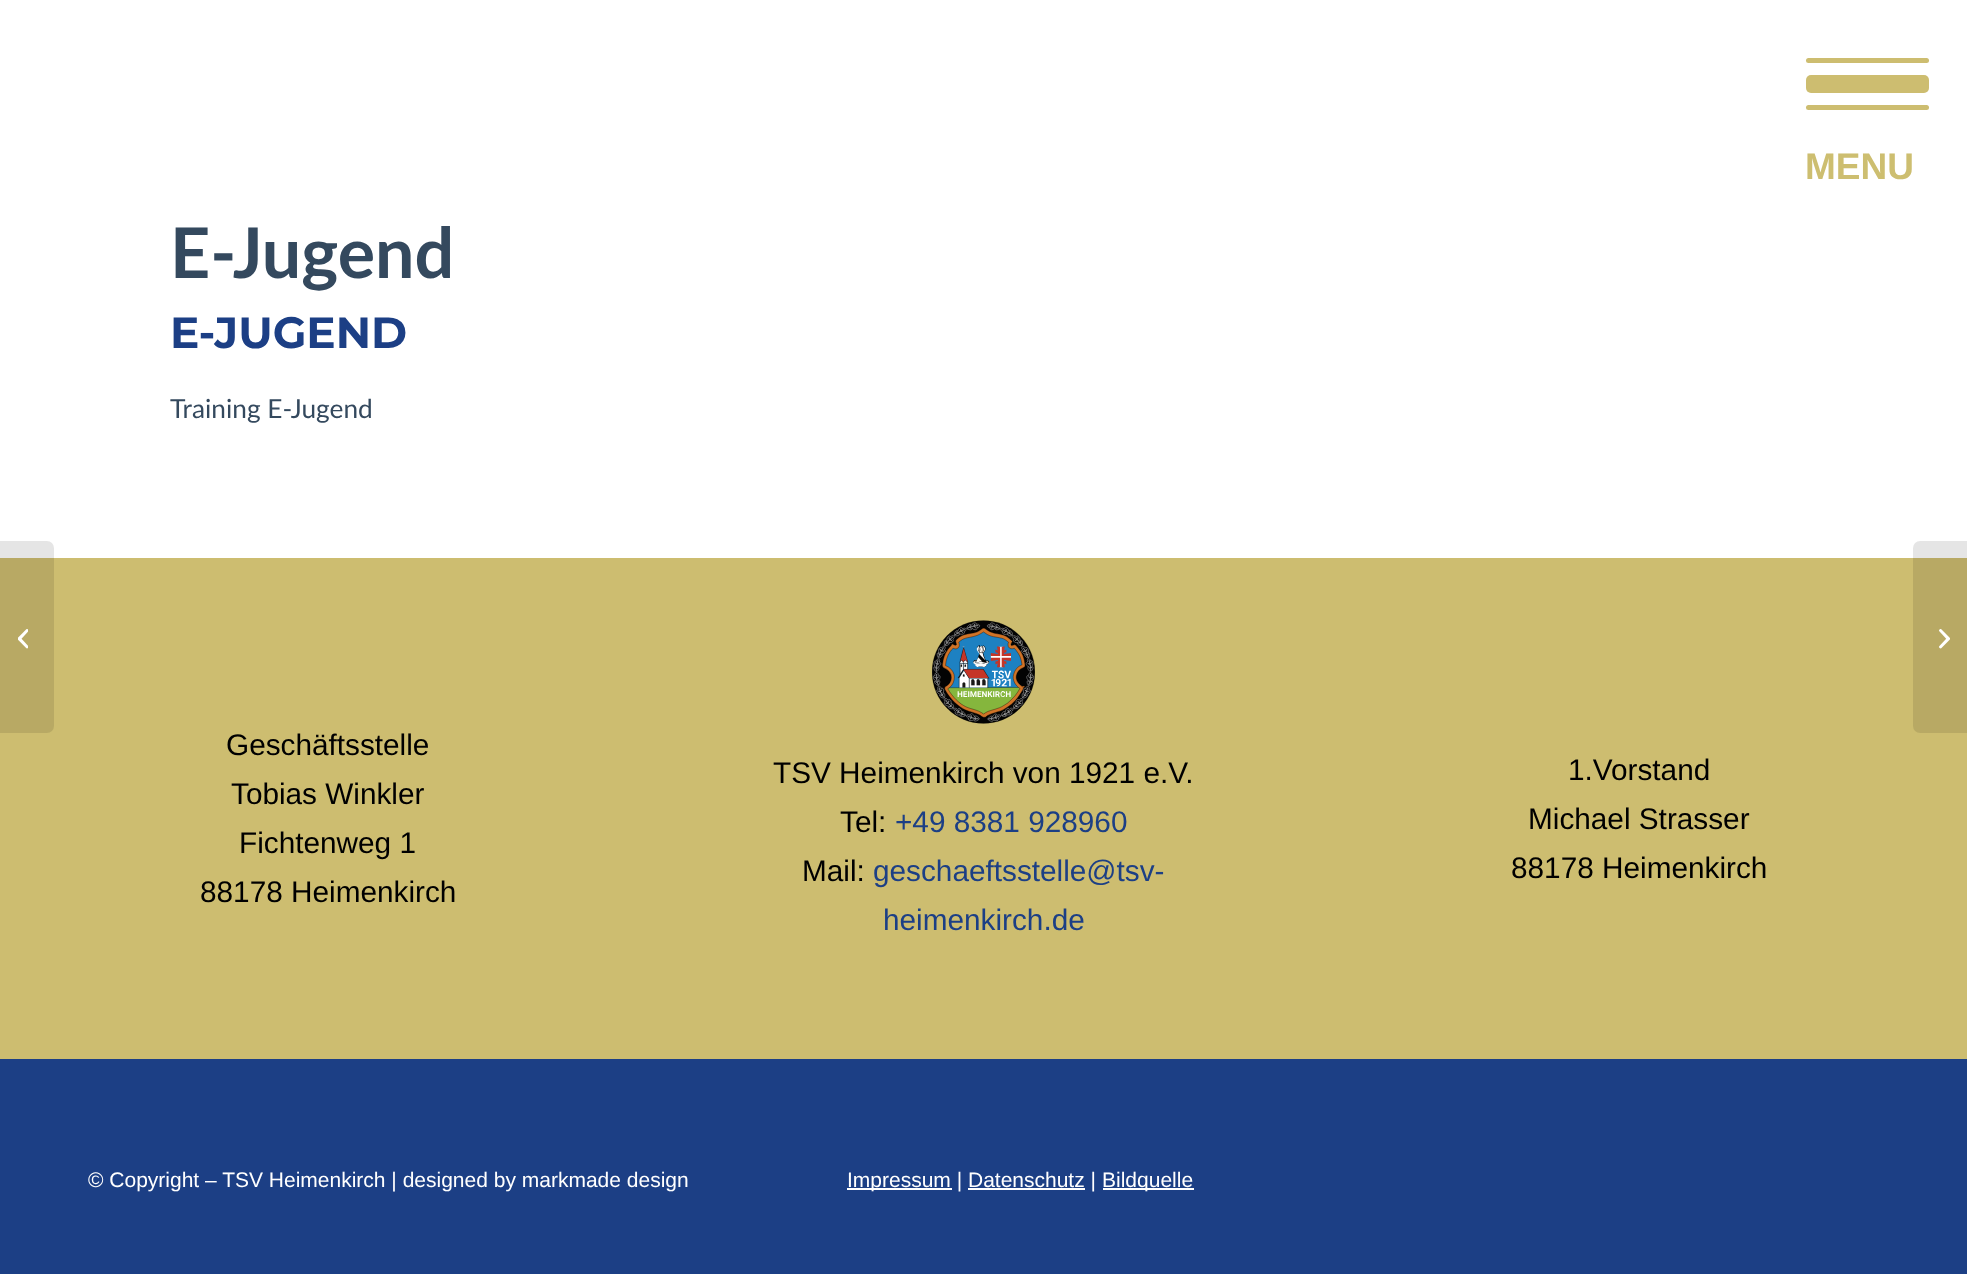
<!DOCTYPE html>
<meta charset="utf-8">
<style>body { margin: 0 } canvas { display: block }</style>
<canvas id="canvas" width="1967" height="1274"></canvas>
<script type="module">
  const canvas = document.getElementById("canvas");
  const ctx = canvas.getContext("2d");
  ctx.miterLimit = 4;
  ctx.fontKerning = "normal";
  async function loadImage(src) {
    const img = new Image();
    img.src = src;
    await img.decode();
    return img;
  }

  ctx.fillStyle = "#ffffff";
  ctx.fillRect(0, 0, 1967, 1274);
  ctx.fillStyle = "#cdbd70";
  ctx.beginPath();
  ctx.roundRect(1806, 75, 123, 18, 5);
  ctx.fill();
  ctx.beginPath();
  ctx.roundRect(1806, 58, 123, 5, 2.5);
  ctx.fill();
  ctx.beginPath();
  ctx.roundRect(1806, 105, 123, 5, 2.5);
  ctx.fill();
  ctx.font = "bold 37px Liberation Sans";
  ctx.fillStyle = "#cdbe70";
  ctx.fillText("MENU", 1805, 179);
  ctx.fillStyle = "#cdbd70";
  ctx.fillRect(0, 558, 1967, 501);
  ctx.fillStyle = "rgba(0, 0, 0, 0.1)";
  ctx.beginPath();
  ctx.roundRect(0, 541, 54, 192, [0, 7, 7, 0]);
  ctx.fill();
  ctx.drawImage(await loadImage("img1.png"), 18, 629, 10, 20);
  ctx.font = "bold 70px Lato";
  ctx.fillStyle = "#34495e";
  ctx.fillText("E-Jugend", 170, 278);
  ctx.font = "bold 43.75px Montserrat";
  ctx.fillStyle = "#1c3f85";
  ctx.fillText("E-JUGEND", 170, 348);
  ctx.font = "26.25px Lato";
  ctx.fillStyle = "#34495e";
  ctx.fillText("Training E-Jugend", 170, 418);
  ctx.font = "29.75px Liberation Sans";
  ctx.fillStyle = "#000000";
  ctx.fillText("Geschäftsstelle", 226, 755);
  ctx.fillText("Tobias Winkler", 231, 804);
  ctx.fillText("Fichtenweg 1", 239, 853);
  ctx.fillText("88178 Heimenkirch", 200, 902);
  ctx.drawImage(await loadImage("img2.png"), 932, 620, 103, 104);
  ctx.fillText("TSV Heimenkirch von 1921 e.V.", 773, 783);
  ctx.fillText("Tel:", 840, 832);
  ctx.fillStyle = "#1c3f85";
  ctx.fillText("+49 8381 928960", 895, 832);
  ctx.fillStyle = "#000000";
  ctx.fillText("Mail:", 802, 881);
  ctx.fillStyle = "#1c3f85";
  ctx.fillText("geschaeftsstelle@tsv-", 873, 881);
  ctx.fillText("heimenkirch.de", 883, 930);
  ctx.fillStyle = "#000000";
  ctx.fillText("1.Vorstand", 1568, 780);
  ctx.fillText("Michael Strasser", 1528, 829);
  ctx.fillText("88178 Heimenkirch", 1511, 878);
  ctx.fillStyle = "#1c3f85";
  ctx.fillRect(0, 1059, 1967, 215);
  ctx.font = "21px Liberation Sans";
  ctx.fillStyle = "#ffffff";
  ctx.fillText("© Copyright – TSV Heimenkirch | designed by markmade design", 88, 1187);
  ctx.fillRect(847, 1188, 105, 2);
  ctx.fillText("Impressum | Datenschutz |", 847, 1187);
  ctx.fillRect(1103, 1188, 91, 2);
  ctx.fillText("Bildquelle", 1102, 1187);
  ctx.fillRect(968, 1188, 117, 2);
  ctx.fillStyle = "rgba(0, 0, 0, 0.1)";
  ctx.beginPath();
  ctx.roundRect(1913, 541, 54, 192, [7, 0, 0, 7]);
  ctx.fill();
  ctx.drawImage(await loadImage("img3.png"), 1939, 629, 11, 20);
</script>
